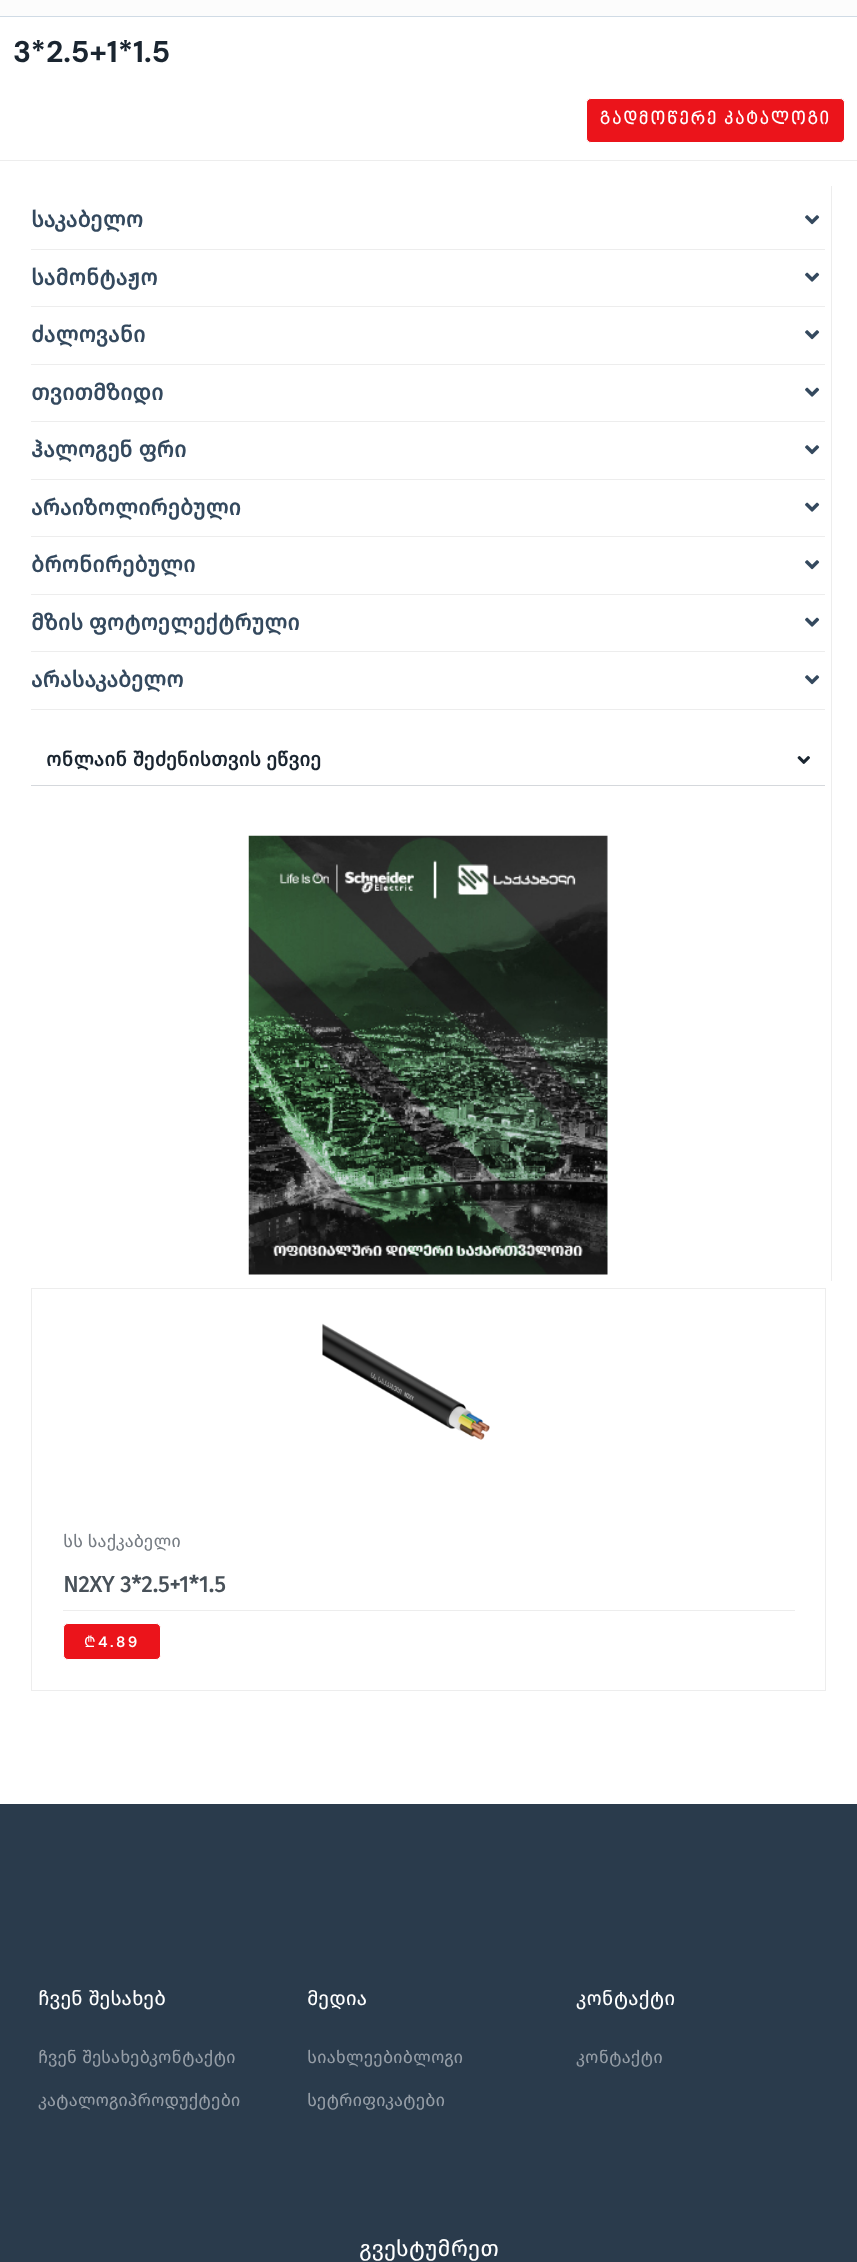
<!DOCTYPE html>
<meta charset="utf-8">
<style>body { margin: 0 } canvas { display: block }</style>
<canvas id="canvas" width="857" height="2262"></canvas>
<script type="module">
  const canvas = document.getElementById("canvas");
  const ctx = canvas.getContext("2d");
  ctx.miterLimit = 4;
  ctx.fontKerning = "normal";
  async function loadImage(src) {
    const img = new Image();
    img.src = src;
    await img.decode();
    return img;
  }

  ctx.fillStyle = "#ffffff";
  ctx.fillRect(0, 0, 857, 2262);
  ctx.fillStyle = "#fcfcfc";
  ctx.fillRect(0, 0, 857, 16);
  ctx.fillStyle = "#d0dbe5";
  ctx.fillRect(0, 16, 857, 1);
  ctx.fillStyle = "#ededed";
  ctx.fillRect(0, 160, 857, 1);
  ctx.font = "bold 30px DM Sans";
  ctx.fillStyle = "#1a2530";
  ctx.fillText("3*2.5+1*1.5", 13, 62);
  ctx.fillStyle = "#eb141b";
  ctx.beginPath();
  ctx.roundRect(586.5, 98.5, 258, 44, 4.5);
  ctx.fill();
  ctx.strokeStyle = "#ffffff";
  ctx.stroke();
  ctx.letterSpacing = "2.5px";
  ctx.font = "bold 17.5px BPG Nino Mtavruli";
  ctx.fillStyle = "#ffffff";
  ctx.fillText("გადმოწერე კატალოგი", 600, 125);
  ctx.fillStyle = "#ededed";
  ctx.fillRect(831, 186, 1, 1095);
  ctx.fillRect(31, 249, 794, 1);
  ctx.letterSpacing = "0px";
  ctx.font = "bold 22.5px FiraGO";
  ctx.fillStyle = "#34495e";
  ctx.fillText("საკაბელო", 31, 227);
  ctx.drawImage(await loadImage("img1.png"), 805, 215, 15, 10);
  ctx.fillStyle = "#ededed";
  ctx.fillRect(31, 306, 794, 1);
  ctx.fillStyle = "#34495e";
  ctx.fillText("სამონტაჟო", 31, 285);
  ctx.drawImage(await loadImage("img2.png"), 805, 272, 15, 10);
  ctx.fillStyle = "#ededed";
  ctx.fillRect(31, 364, 794, 1);
  ctx.fillStyle = "#34495e";
  ctx.fillText("ძალოვანი", 31, 342);
  ctx.drawImage(await loadImage("img1.png"), 805, 330, 15, 10);
  ctx.fillStyle = "#ededed";
  ctx.fillRect(31, 421, 794, 1);
  ctx.fillStyle = "#34495e";
  ctx.fillText("თვითმზიდი", 31, 400);
  ctx.drawImage(await loadImage("img2.png"), 805, 387, 15, 10);
  ctx.fillStyle = "#ededed";
  ctx.fillRect(31, 479, 794, 1);
  ctx.fillStyle = "#34495e";
  ctx.fillText("ჰალოგენ ფრი", 31, 457);
  ctx.drawImage(await loadImage("img1.png"), 805, 445, 15, 10);
  ctx.fillStyle = "#ededed";
  ctx.fillRect(31, 536, 794, 1);
  ctx.fillStyle = "#34495e";
  ctx.fillText("არაიზოლირებული", 31, 515);
  ctx.drawImage(await loadImage("img2.png"), 805, 502, 15, 10);
  ctx.fillStyle = "#ededed";
  ctx.fillRect(31, 594, 794, 1);
  ctx.fillStyle = "#34495e";
  ctx.fillText("ბრონირებული", 31, 572);
  ctx.drawImage(await loadImage("img1.png"), 805, 560, 15, 10);
  ctx.fillStyle = "#ededed";
  ctx.fillRect(31, 651, 794, 1);
  ctx.fillStyle = "#34495e";
  ctx.fillText("მზის ფოტოელექტრული", 31, 630);
  ctx.drawImage(await loadImage("img2.png"), 805, 617, 15, 10);
  ctx.fillStyle = "#ededed";
  ctx.fillRect(31, 709, 794, 1);
  ctx.fillStyle = "#34495e";
  ctx.fillText("არასაკაბელო", 31, 687);
  ctx.drawImage(await loadImage("img1.png"), 805, 675, 15, 10);
  ctx.fillStyle = "#d5d8dc";
  ctx.fillRect(31, 785, 794, 1);
  ctx.font = "bold 20px FiraGO";
  ctx.fillStyle = "#1a2530";
  ctx.fillText("ონლაინ შეძენისთვის ეწვიე", 46, 766);
  ctx.drawImage(await loadImage("img3.png"), 797, 756, 13, 8);
  ctx.drawImage(await loadImage("img4.png"), 248, 835, 360, 440);
  ctx.strokeStyle = "#ededed";
  ctx.strokeRect(31.5, 1288.5, 794, 402);
  ctx.drawImage(await loadImage("img5.png"), 322, 1323, 168, 117);
  ctx.font = "17.5px FiraGO";
  ctx.fillStyle = "#767c83";
  ctx.fillText("სს საქკაბელი", 63, 1547);
  ctx.fillStyle = "#ededed";
  ctx.fillRect(63, 1610, 732, 1);
  ctx.font = "bold 22.5px FiraGO";
  ctx.fillStyle = "#485159";
  ctx.fillText("N2XY 3*2.5+1*1.5", 63, 1592);
  ctx.fillStyle = "#eb141b";
  ctx.beginPath();
  ctx.roundRect(63.5, 1623.5, 97, 36, 4.5);
  ctx.fill();
  ctx.strokeStyle = "#ffffff";
  ctx.stroke();
  ctx.letterSpacing = "2.5px";
  ctx.font = "15px Noto Sans";
  ctx.fillStyle = "#ffffff";
  ctx.fillText("₾", 84, 1647);
  ctx.font = "600 15px DM Sans";
  ctx.fillText("4.89", 98, 1647);
  ctx.fillStyle = "#2a3b4c";
  ctx.fillRect(0, 1804, 857, 458);
  ctx.letterSpacing = "0px";
  ctx.font = "20px FiraGO";
  ctx.fillStyle = "#ffffff";
  ctx.fillText("ჩვენ შესახებ", 38, 2005);
  ctx.font = "17.5px FiraGO";
  ctx.fillStyle = "#959da6";
  ctx.fillText("ჩვენ შესახებკონტაქტი", 38, 2063);
  ctx.fillText("კატალოგიპროდუქტები", 38, 2106);
  ctx.font = "20px FiraGO";
  ctx.fillStyle = "#ffffff";
  ctx.fillText("მედია", 307, 2005);
  ctx.font = "17.5px FiraGO";
  ctx.fillStyle = "#959da6";
  ctx.fillText("სიახლეებიბლოგი", 307, 2063);
  ctx.fillText("სეტრიფიკატები", 307, 2106);
  ctx.font = "20px FiraGO";
  ctx.fillStyle = "#ffffff";
  ctx.fillText("კონტაქტი", 576, 2005);
  ctx.font = "17.5px FiraGO";
  ctx.fillStyle = "#959da6";
  ctx.fillText("კონტაქტი", 576, 2063);
  ctx.font = "22.5px FiraGO";
  ctx.fillStyle = "#ffffff";
  ctx.fillText("გვესტუმრეთ", 359, 2256);
</script>
